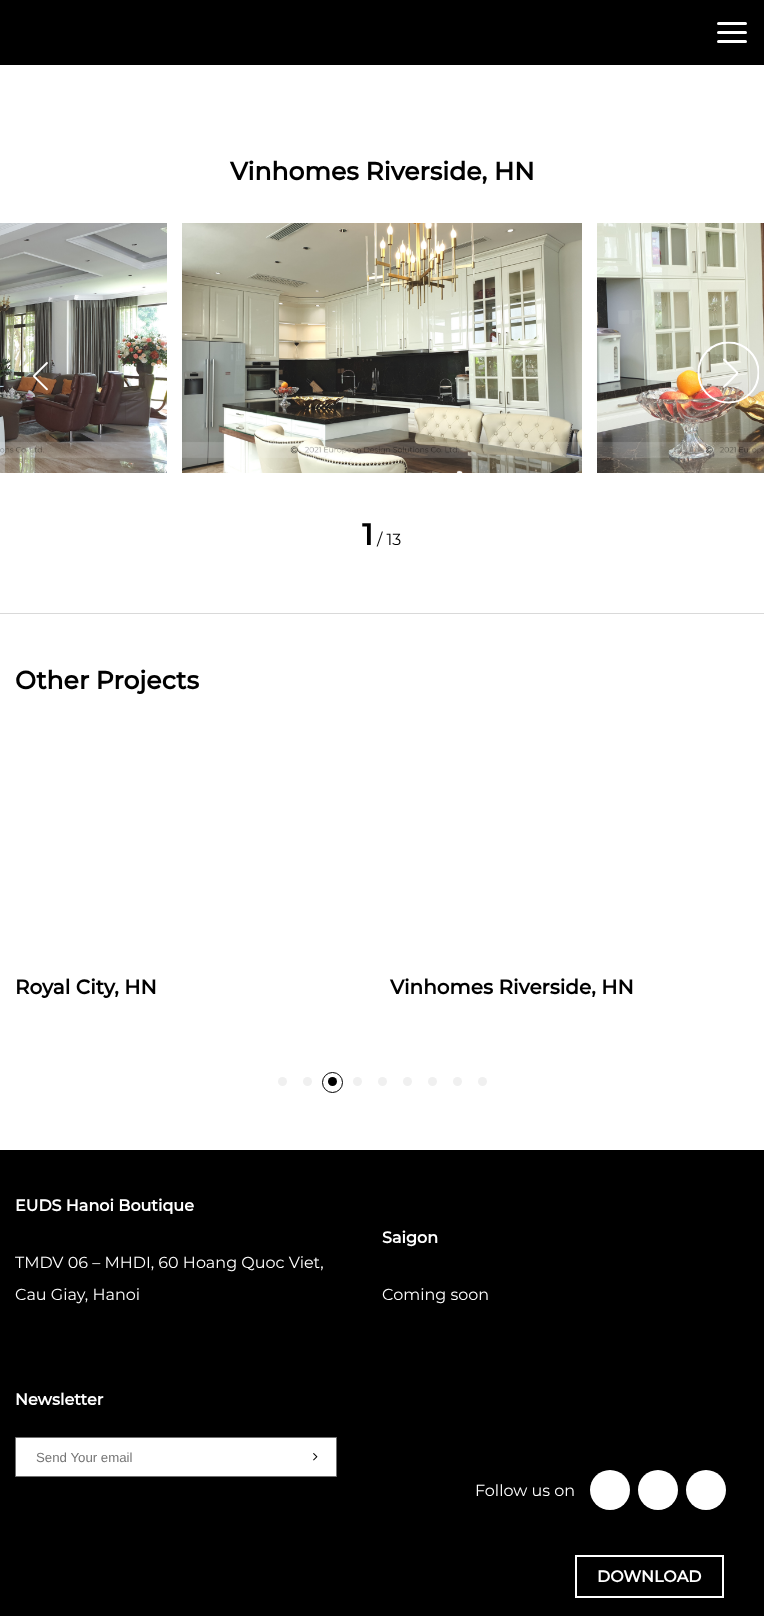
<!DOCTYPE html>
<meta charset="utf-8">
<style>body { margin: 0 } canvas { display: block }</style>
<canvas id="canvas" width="764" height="1616"></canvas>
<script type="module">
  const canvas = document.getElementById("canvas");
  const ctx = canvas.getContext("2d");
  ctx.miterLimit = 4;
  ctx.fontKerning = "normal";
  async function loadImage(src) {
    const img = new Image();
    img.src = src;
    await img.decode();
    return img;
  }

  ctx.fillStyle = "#ffffff";
  ctx.fillRect(0, 0, 764, 1616);
  ctx.fillStyle = "#000000";
  ctx.fillRect(0, 0, 764, 65);
  ctx.fillStyle = "#ffffff";
  ctx.beginPath();
  ctx.roundRect(717, 31, 30, 3, 1.5);
  ctx.fill();
  ctx.beginPath();
  ctx.roundRect(717, 22, 30, 3, 1.5);
  ctx.fill();
  ctx.beginPath();
  ctx.roundRect(717, 40, 30, 3, 1.5);
  ctx.fill();
  ctx.font = "bold 25px Montserrat";
  ctx.fillStyle = "#000000";
  ctx.fillText("Vinhomes Riverside, HN", 230, 180);
  ctx.drawImage(await loadImage("img1.png"), 0, 223, 167, 250);
  ctx.drawImage(await loadImage("img2.png"), 182, 223, 400, 250);
  ctx.drawImage(await loadImage("img3.png"), 597, 223, 167, 250);
  ctx.drawImage(await loadImage("img4.png"), 33, 362, 15, 29);
  ctx.save();
  ctx.beginPath();
  ctx.moveTo(689, 411.5);
  ctx.lineTo(689, 341.5);
  ctx.lineTo(759, 341.5);
  ctx.lineTo(759, 411.5);
  ctx.closePath();
  ctx.clip();
  ctx.beginPath();
  ctx.moveTo(698.5, 372.5);
  ctx.bezierCurveTo(698.5, 356, 711.5, 342.5, 728.5, 342.5);
  ctx.bezierCurveTo(745, 342.5, 758.5, 356, 758.5, 372.5);
  ctx.bezierCurveTo(758.5, 389.5, 745, 402.5, 728.5, 402.5);
  ctx.bezierCurveTo(711.5, 402.5, 698.5, 389.5, 698.5, 372.5);
  ctx.moveTo(698.5, 372.5);
  ctx.bezierCurveTo(698.5, 356, 711.5, 342.5, 728.5, 342.5);
  ctx.bezierCurveTo(745, 342.5, 758.5, 356, 758.5, 372.5);
  ctx.bezierCurveTo(758.5, 389.5, 745, 402.5, 728.5, 402.5);
  ctx.bezierCurveTo(711.5, 402.5, 698.5, 389.5, 698.5, 372.5);
  ctx.strokeStyle = "#ffffff";
  ctx.lineWidth = 2;
  ctx.stroke();
  ctx.restore();
  ctx.drawImage(await loadImage("img5.png"), 723, 358, 16, 30);
  ctx.font = "bold 30px Montserrat";
  ctx.fillText("1", 362, 545);
  ctx.font = "16px Montserrat";
  ctx.fillText("/ 13", 377, 545);
  ctx.fillStyle = "#d9d9d9";
  ctx.fillRect(0, 613, 764, 1);
  ctx.font = "bold 25px Montserrat";
  ctx.fillStyle = "#000000";
  ctx.fillText("Other Projects", 15, 689);
  ctx.font = "bold 20px Montserrat";
  ctx.fillText("Royal City, HN", 15, 994);
  ctx.fillText("Vinhomes Riverside, HN", 390, 994);
  ctx.fillStyle = "#f0f0f0";
  ctx.beginPath();
  ctx.arc(282.5, 1081.5, 4.5, 0, Math.PI * 2);
  ctx.fill();
  ctx.beginPath();
  ctx.arc(307.5, 1081.5, 4.5, 0, Math.PI * 2);
  ctx.fill();
  ctx.fillStyle = "#000000";
  ctx.beginPath();
  ctx.arc(332.5, 1081.5, 4.5, 0, Math.PI * 2);
  ctx.fill();
  ctx.beginPath();
  ctx.arc(332.5, 1082.5, 10, 0, Math.PI * 2);
  ctx.strokeStyle = "#000000";
  ctx.stroke();
  ctx.fillStyle = "#f0f0f0";
  ctx.beginPath();
  ctx.arc(357.5, 1081.5, 4.5, 0, Math.PI * 2);
  ctx.fill();
  ctx.beginPath();
  ctx.arc(382.5, 1081.5, 4.5, 0, Math.PI * 2);
  ctx.fill();
  ctx.beginPath();
  ctx.arc(407.5, 1081.5, 4.5, 0, Math.PI * 2);
  ctx.fill();
  ctx.beginPath();
  ctx.arc(432.5, 1081.5, 4.5, 0, Math.PI * 2);
  ctx.fill();
  ctx.beginPath();
  ctx.arc(457.5, 1081.5, 4.5, 0, Math.PI * 2);
  ctx.fill();
  ctx.beginPath();
  ctx.arc(482.5, 1081.5, 4.5, 0, Math.PI * 2);
  ctx.fill();
  ctx.fillStyle = "#000000";
  ctx.fillRect(0, 1150, 764, 466);
  ctx.font = "bold 16px Montserrat";
  ctx.fillStyle = "#ffffff";
  ctx.fillText("EUDS Hanoi Boutique", 15, 1211);
  ctx.font = "16px Montserrat";
  ctx.fillText("TMDV 06 – MHDI, 60 Hoang Quoc Viet,", 15, 1268);
  ctx.fillText("Cau Giay, Hanoi", 15, 1300);
  ctx.font = "bold 16px Montserrat";
  ctx.fillText("Saigon", 382, 1243);
  ctx.font = "16px Montserrat";
  ctx.fillText("Coming soon", 382, 1300);
  ctx.font = "bold 16px Montserrat";
  ctx.fillText("Newsletter", 15, 1405);
  ctx.beginPath();
  ctx.rect(15.5, 1437.5, 321, 39);
  ctx.fill();
  ctx.strokeStyle = "#707070";
  ctx.stroke();
  ctx.font = "13.25px Liberation Sans";
  ctx.fillStyle = "#757575";
  ctx.fillText("Send Your email", 36, 1462);
  ctx.drawImage(await loadImage("img6.png"), 313, 1453, 5, 8);
  ctx.font = "16px Montserrat";
  ctx.fillStyle = "#ffffff";
  ctx.fillText("Follow us on", 475, 1496);
  ctx.beginPath();
  ctx.arc(610, 1490, 20, 0, Math.PI * 2);
  ctx.fill();
  ctx.beginPath();
  ctx.arc(658, 1490, 20, 0, Math.PI * 2);
  ctx.fill();
  ctx.beginPath();
  ctx.arc(706, 1490, 20, 0, Math.PI * 2);
  ctx.fill();
  ctx.strokeStyle = "#ffffff";
  ctx.lineWidth = 2;
  ctx.strokeRect(576, 1556, 147, 41);
  ctx.font = "bold 16px Montserrat";
  ctx.fillText("DOWNLOAD", 597, 1582);
</script>
